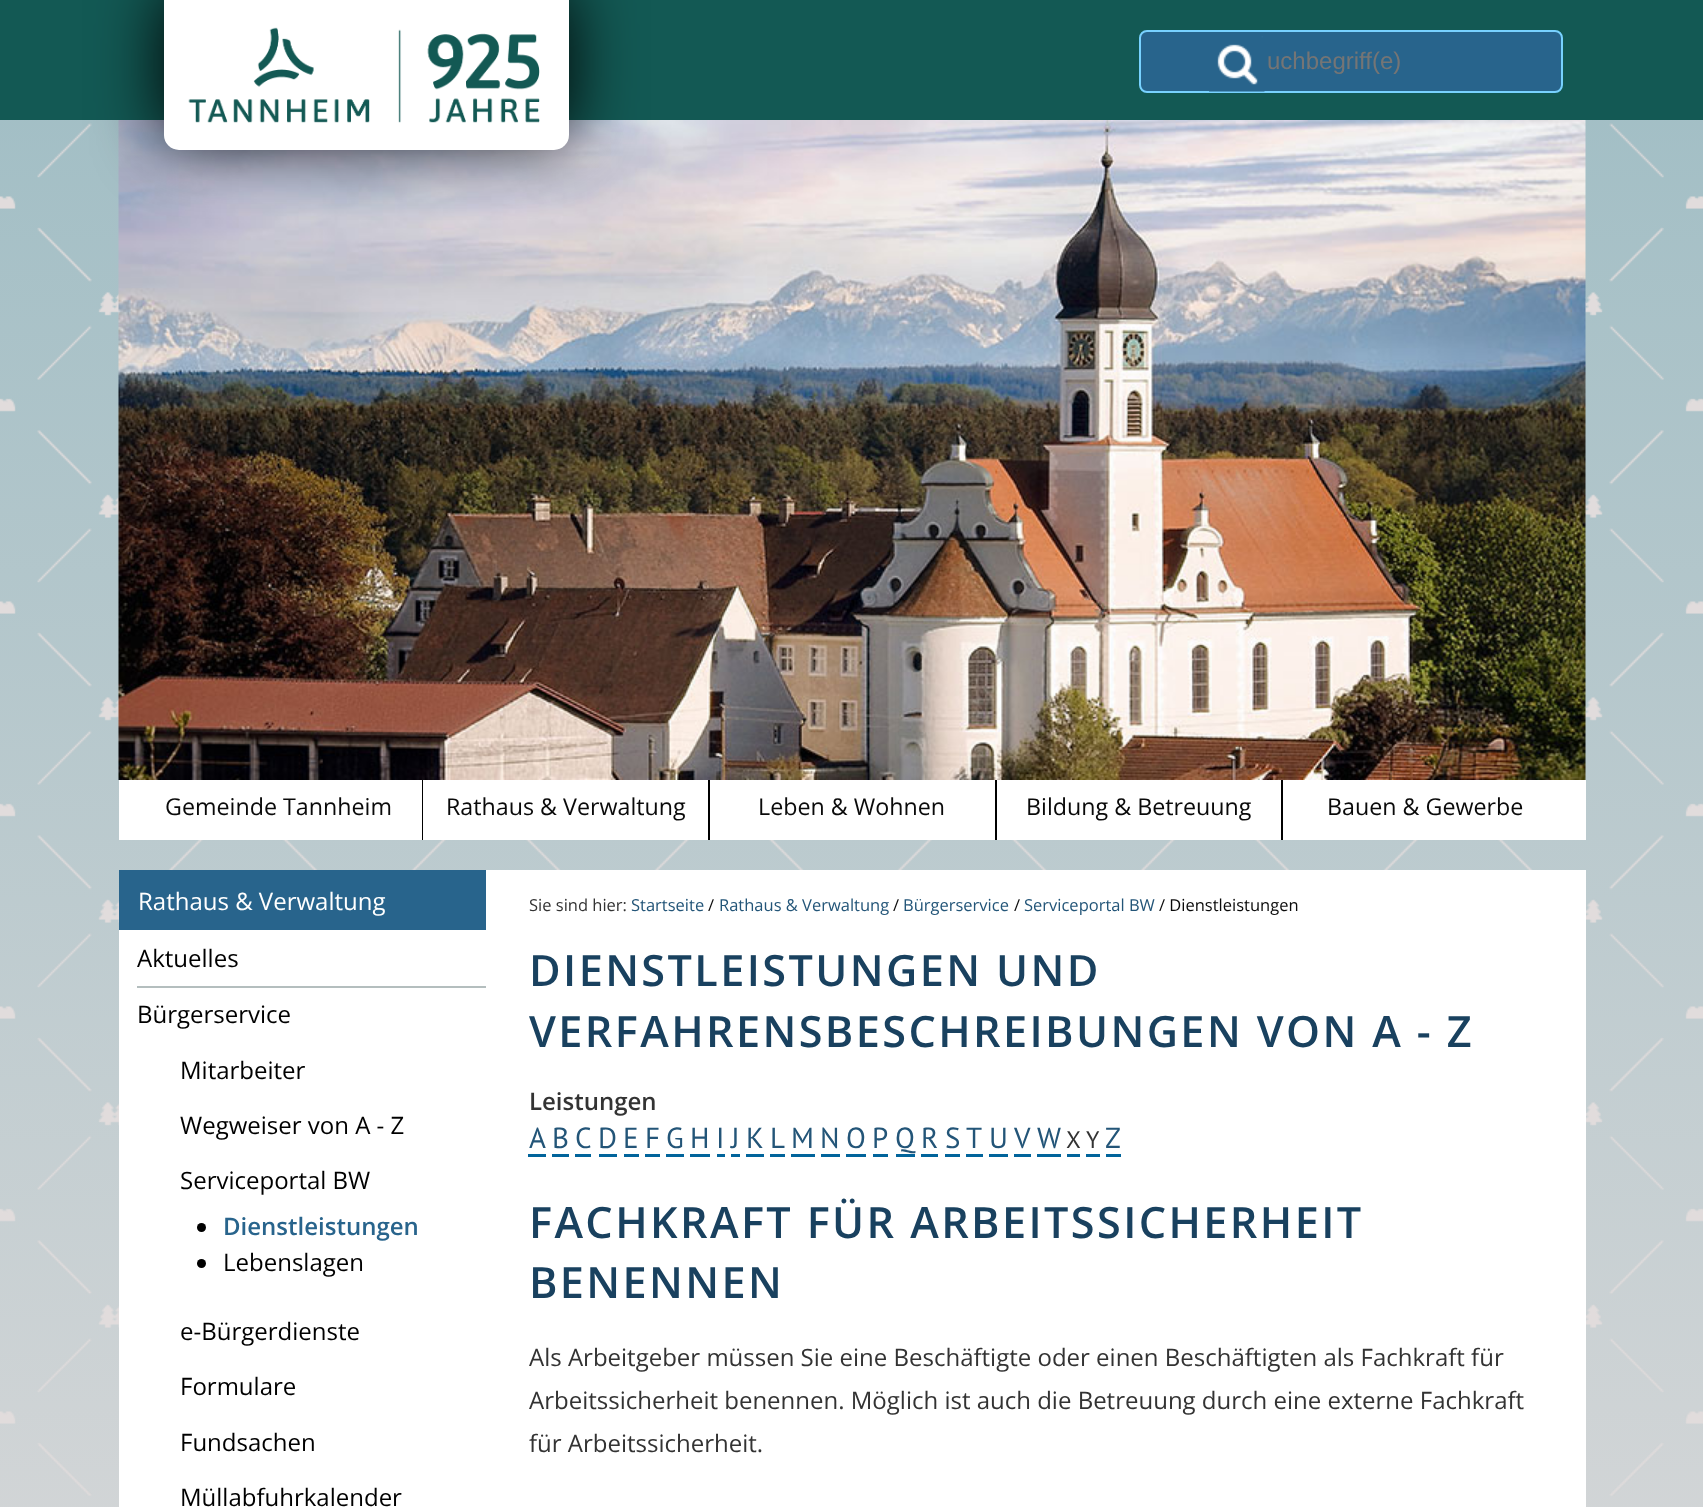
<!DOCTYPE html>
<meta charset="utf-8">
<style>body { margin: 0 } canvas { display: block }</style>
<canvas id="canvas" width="1703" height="1507"></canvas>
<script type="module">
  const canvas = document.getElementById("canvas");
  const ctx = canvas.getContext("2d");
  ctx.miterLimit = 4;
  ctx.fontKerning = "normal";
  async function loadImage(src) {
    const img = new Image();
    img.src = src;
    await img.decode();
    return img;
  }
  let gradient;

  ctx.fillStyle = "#ffffff";
  ctx.fillRect(0, 0, 1703, 1507);
  gradient = ctx.createLinearGradient(852, 0, 852, 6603);
  gradient.addColorStop(0, "#9fbdc4");
  gradient.addColorStop(0.3, "#e1dcdc");
  ctx.fillStyle = gradient;
  ctx.fillRect(0, 120, 1703, 1387);
  ctx.drawImage(await loadImage("img1.png"), 0, 122, 1703, 1374);
  ctx.fillStyle = "#135954";
  ctx.fillRect(0, 0, 1703, 120);
  ctx.drawImage(await loadImage("img4.png"), 118, 120, 1468, 660);
  ctx.fillStyle = "#000000";
  ctx.filter = "blur(34px)";
  ctx.beginPath();
  ctx.roundRect(164, -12, 405, 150, 15);
  ctx.fill();
  ctx.filter = "none";
  ctx.fillStyle = "#ffffff";
  ctx.beginPath();
  ctx.roundRect(164, 0, 405, 150, [0, 0, 15, 15]);
  ctx.fill();
  ctx.drawImage(await loadImage("img2.png"), 188, 27, 352, 96);
  ctx.fillStyle = "#28648c";
  ctx.beginPath();
  ctx.roundRect(1140, 31, 422, 61, 7);
  ctx.fill();
  ctx.strokeStyle = "#78d1ff";
  ctx.lineWidth = 2;
  ctx.stroke();
  ctx.drawImage(await loadImage("img3.png"), 1209, 36, 56, 56);
  ctx.font = "24px Liberation Sans";
  ctx.fillStyle = "#757575";
  ctx.fillText("uchbegriff(e)", 1267, 69);
  ctx.fillStyle = "#ffffff";
  ctx.fillRect(119, 780, 1467, 60);
  ctx.fillStyle = "#000000";
  ctx.fillRect(422, 780, 1, 60);
  ctx.font = "23.25px Open Sans";
  ctx.fillStyle = "#0a0a0a";
  ctx.fillText("Gemeinde Tannheim", 165, 815);
  ctx.fillStyle = "#000000";
  ctx.fillRect(708, 780, 2, 60);
  ctx.fillStyle = "#0a0a0a";
  ctx.fillText("Rathaus & Verwaltung", 446, 815);
  ctx.fillStyle = "#000000";
  ctx.fillRect(995, 780, 2, 60);
  ctx.fillStyle = "#0a0a0a";
  ctx.fillText("Leben & Wohnen", 758, 815);
  ctx.fillStyle = "#000000";
  ctx.fillRect(1281, 780, 2, 60);
  ctx.fillStyle = "#0a0a0a";
  ctx.fillText("Bildung & Betreuung", 1026, 815);
  ctx.fillText("Bauen & Gewerbe", 1327, 815);
  ctx.fillStyle = "#ffffff";
  ctx.fillRect(119, 870, 1467, 637);
  ctx.fillStyle = "#28648c";
  ctx.fillRect(119, 870, 367, 60);
  ctx.font = "24px Open Sans";
  ctx.fillStyle = "#ffffff";
  ctx.fillText("Rathaus & Verwaltung", 138, 910);
  ctx.fillStyle = "#b4bebe";
  ctx.fillRect(137, 986, 349, 2);
  ctx.fillStyle = "#000000";
  ctx.fillText("Aktuelles", 137, 967);
  ctx.fillText("Bürgerservice", 137, 1023);
  ctx.fillText("Mitarbeiter", 180, 1079);
  ctx.fillText("Wegweiser von A - Z", 180, 1134);
  ctx.fillText("Serviceportal BW", 180, 1189);
  ctx.beginPath();
  ctx.arc(201.5, 1227.5, 4.5, 0, Math.PI * 2);
  ctx.fill();
  ctx.font = "600 24px Open Sans";
  ctx.fillStyle = "#28648c";
  ctx.fillText("Dienstleistungen", 223, 1235);
  ctx.fillStyle = "#000000";
  ctx.beginPath();
  ctx.arc(201.5, 1263.5, 4.5, 0, Math.PI * 2);
  ctx.fill();
  ctx.font = "24px Open Sans";
  ctx.fillText("Lebenslagen", 223, 1271);
  ctx.fillText("e-Bürgerdienste", 180, 1340);
  ctx.fillText("Formulare", 180, 1395);
  ctx.fillText("Fundsachen", 180, 1451);
  ctx.fillText("Müllabfuhrkalender", 180, 1506);
  ctx.font = "16.5px Open Sans";
  ctx.fillStyle = "#333333";
  ctx.fillText("Sie sind hier:", 529, 911);
  ctx.fillStyle = "#235578";
  ctx.fillText("Startseite", 631, 911);
  ctx.fillStyle = "#0a0a0a";
  ctx.fillText("/", 708, 911);
  ctx.fillStyle = "#235578";
  ctx.fillText("Rathaus & Verwaltung", 719, 911);
  ctx.fillStyle = "#0a0a0a";
  ctx.fillText("/", 893, 911);
  ctx.fillStyle = "#235578";
  ctx.fillText("Bürgerservice", 903, 911);
  ctx.fillStyle = "#0a0a0a";
  ctx.fillText("/", 1014, 911);
  ctx.fillStyle = "#235578";
  ctx.fillText("Serviceportal BW", 1024, 911);
  ctx.fillStyle = "#0a0a0a";
  ctx.fillText("/ Dienstleistungen", 1159, 911);
  ctx.letterSpacing = "2.4px";
  ctx.font = "600 43.2px Open Sans";
  ctx.fillStyle = "#19415f";
  ctx.fillText("DIENSTLEISTUNGEN UND", 529, 986);
  ctx.fillText("VERFAHRENSBESCHREIBUNGEN VON A - Z", 529, 1047);
  ctx.letterSpacing = "0px";
  ctx.font = "600 24px Open Sans";
  ctx.fillStyle = "#333333";
  ctx.fillText("Leistungen", 529, 1110);
  ctx.font = "29px PT Sans";
  ctx.fillStyle = "#235578";
  ctx.fillText("A", 529, 1148);
  ctx.fillStyle = "#01649b";
  ctx.fillRect(528, 1154, 18, 3);
  ctx.fillStyle = "#235578";
  ctx.fillText("B", 552, 1148);
  ctx.fillStyle = "#01649b";
  ctx.fillRect(552, 1154, 17, 3);
  ctx.fillStyle = "#235578";
  ctx.fillText("C", 575, 1148);
  ctx.fillStyle = "#01649b";
  ctx.fillRect(575, 1154, 16, 3);
  ctx.fillStyle = "#235578";
  ctx.fillText("D", 598, 1148);
  ctx.fillStyle = "#01649b";
  ctx.fillRect(599, 1154, 18, 3);
  ctx.fillStyle = "#235578";
  ctx.fillText("E", 623, 1148);
  ctx.fillStyle = "#01649b";
  ctx.fillRect(624, 1154, 15, 3);
  ctx.fillStyle = "#235578";
  ctx.fillText("F", 645, 1148);
  ctx.fillStyle = "#01649b";
  ctx.fillRect(645, 1154, 15, 3);
  ctx.fillStyle = "#235578";
  ctx.fillText("G", 666, 1148);
  ctx.fillStyle = "#01649b";
  ctx.fillRect(666, 1154, 18, 3);
  ctx.fillStyle = "#235578";
  ctx.fillText("H", 690, 1148);
  ctx.fillStyle = "#01649b";
  ctx.fillRect(690, 1154, 20, 3);
  ctx.fillStyle = "#235578";
  ctx.fillText("I", 716, 1148);
  ctx.fillStyle = "#01649b";
  ctx.fillRect(717, 1154, 8, 3);
  ctx.fillStyle = "#235578";
  ctx.fillText("J", 731, 1148);
  ctx.fillStyle = "#01649b";
  ctx.fillRect(731, 1154, 9, 3);
  ctx.fillStyle = "#235578";
  ctx.fillText("K", 746, 1148);
  ctx.fillStyle = "#01649b";
  ctx.fillRect(746, 1154, 18, 3);
  ctx.fillStyle = "#235578";
  ctx.fillText("L", 770, 1148);
  ctx.fillStyle = "#01649b";
  ctx.fillRect(770, 1154, 15, 3);
  ctx.fillStyle = "#235578";
  ctx.fillText("M", 791, 1148);
  ctx.fillStyle = "#01649b";
  ctx.fillRect(791, 1154, 24, 3);
  ctx.fillStyle = "#235578";
  ctx.fillText("N", 820, 1148);
  ctx.fillStyle = "#01649b";
  ctx.fillRect(821, 1154, 19, 3);
  ctx.fillStyle = "#235578";
  ctx.fillText("O", 846, 1148);
  ctx.fillStyle = "#01649b";
  ctx.fillRect(846, 1154, 20, 3);
  ctx.fillStyle = "#235578";
  ctx.fillText("P", 872, 1148);
  ctx.fillStyle = "#01649b";
  ctx.fillRect(873, 1154, 15, 3);
  ctx.fillStyle = "#235578";
  ctx.fillText("Q", 895, 1148);
  ctx.fillStyle = "#01649b";
  ctx.fillRect(896, 1154, 19, 3);
  ctx.fillStyle = "#235578";
  ctx.fillText("R", 921, 1148);
  ctx.fillStyle = "#01649b";
  ctx.fillRect(921, 1154, 17, 3);
  ctx.fillStyle = "#235578";
  ctx.fillText("S", 945, 1148);
  ctx.fillStyle = "#01649b";
  ctx.fillRect(945, 1154, 15, 3);
  ctx.fillStyle = "#235578";
  ctx.fillText("T", 966, 1148);
  ctx.fillStyle = "#01649b";
  ctx.fillRect(966, 1154, 17, 3);
  ctx.fillStyle = "#235578";
  ctx.fillText("U", 989, 1148);
  ctx.fillStyle = "#01649b";
  ctx.fillRect(989, 1154, 19, 3);
  ctx.fillStyle = "#235578";
  ctx.fillText("V", 1014, 1148);
  ctx.fillStyle = "#01649b";
  ctx.fillRect(1014, 1154, 17, 3);
  ctx.fillStyle = "#235578";
  ctx.fillText("W", 1037, 1148);
  ctx.fillStyle = "#01649b";
  ctx.fillRect(1037, 1154, 24, 3);
  ctx.font = "24px PT Sans";
  ctx.fillStyle = "#333333";
  ctx.fillText("X", 1066, 1148);
  ctx.fillStyle = "#01649b";
  ctx.fillRect(1067, 1154, 13, 3);
  ctx.fillStyle = "#333333";
  ctx.fillText("Y", 1086, 1148);
  ctx.fillStyle = "#01649b";
  ctx.fillRect(1086, 1154, 14, 3);
  ctx.font = "29px PT Sans";
  ctx.fillStyle = "#235578";
  ctx.fillText("Z", 1105, 1148);
  ctx.fillStyle = "#01649b";
  ctx.fillRect(1106, 1154, 15, 3);
  ctx.letterSpacing = "2.4px";
  ctx.font = "600 43.2px Open Sans";
  ctx.fillStyle = "#19415f";
  ctx.fillText("FACHKRAFT FÜR ARBEITSSICHERHEIT", 529, 1238);
  ctx.fillText("BENENNEN", 529, 1298);
  ctx.letterSpacing = "0px";
  ctx.font = "24px Open Sans";
  ctx.fillStyle = "#333333";
  ctx.fillText("Als Arbeitgeber müssen Sie eine Beschäftigte oder einen Beschäftigten als Fachkraft für", 529, 1366);
  ctx.fillText("Arbeitssicherheit benennen. Möglich ist auch die Betreuung durch eine externe Fachkraft", 529, 1409);
  ctx.fillText("für Arbeitssicherheit.", 529, 1452);
</script>
